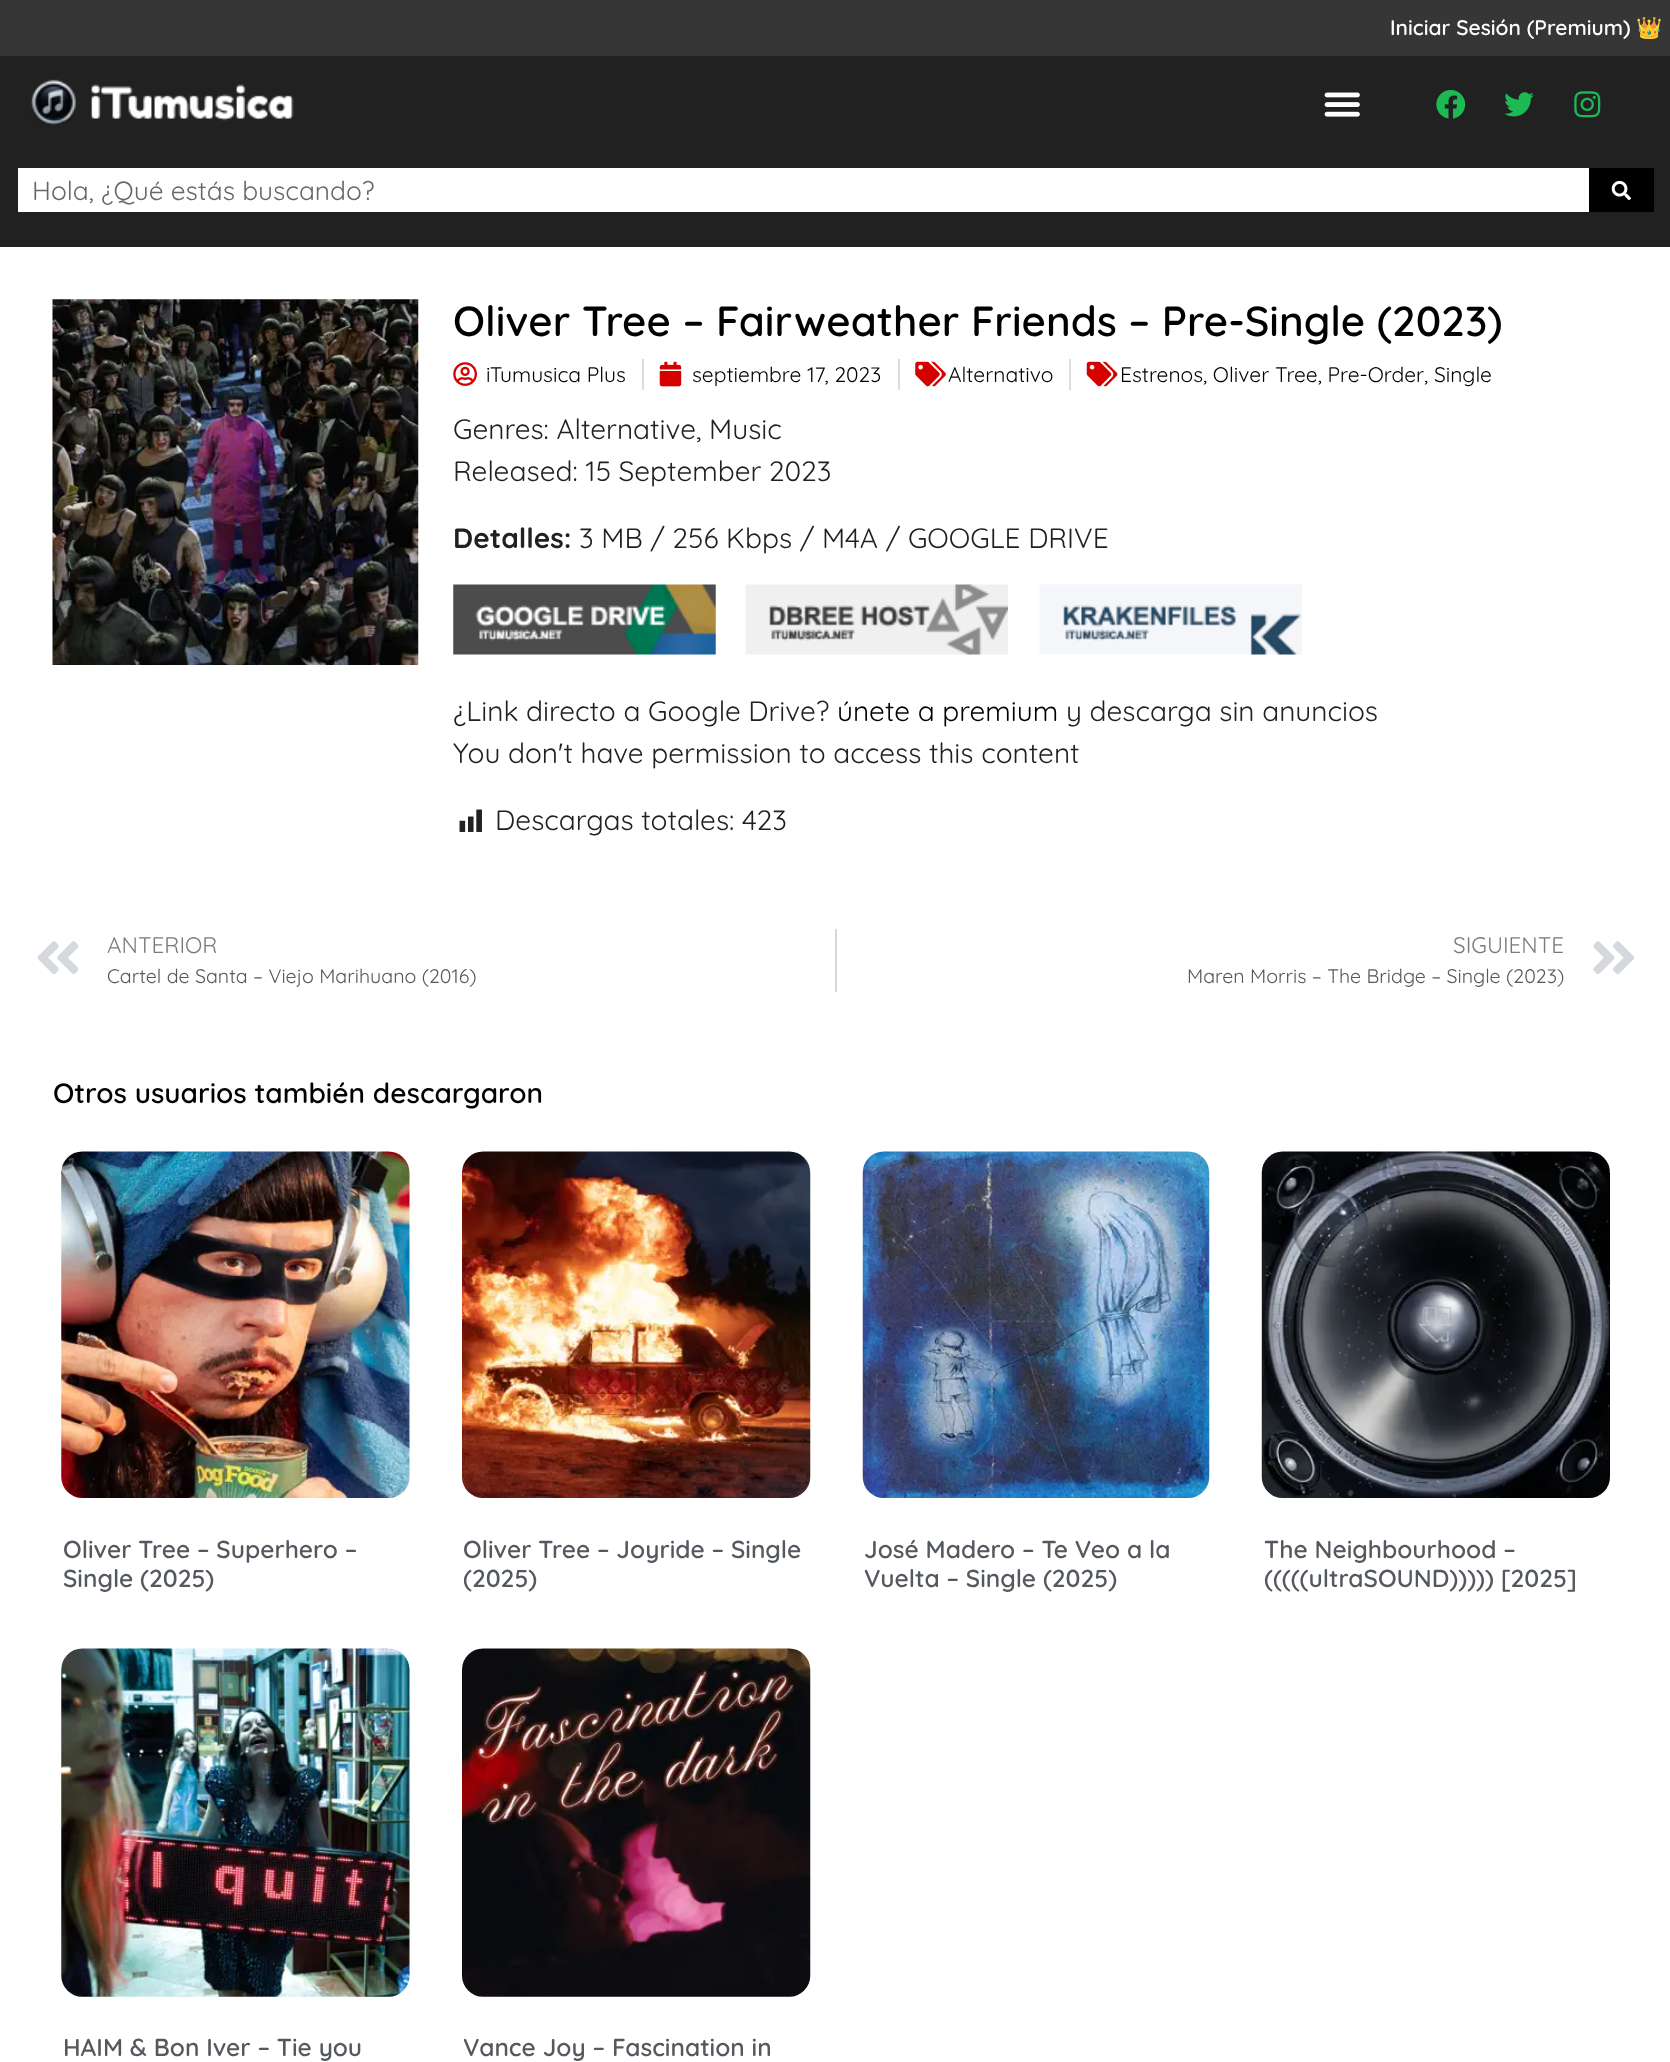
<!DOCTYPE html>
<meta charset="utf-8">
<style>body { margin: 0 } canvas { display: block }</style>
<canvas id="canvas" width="1670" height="2062"></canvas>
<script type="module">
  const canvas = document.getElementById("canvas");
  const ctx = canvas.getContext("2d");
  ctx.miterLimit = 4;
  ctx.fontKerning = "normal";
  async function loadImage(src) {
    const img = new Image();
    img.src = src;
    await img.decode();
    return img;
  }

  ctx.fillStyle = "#ffffff";
  ctx.fillRect(0, 0, 1670, 2062);
  ctx.fillStyle = "#363636";
  ctx.fillRect(0, 0, 1670, 56);
  ctx.font = "600 21px Quicksand";
  ctx.fillStyle = "#ffffff";
  ctx.fillText("Iniciar Sesión (Premium)", 1390, 35);
  ctx.font = "bold 21px Noto Color Emoji";
  ctx.fillText("👑", 1636, 35);
  ctx.fillStyle = "#212121";
  ctx.fillRect(0, 56, 1670, 191);
  ctx.drawImage(await loadImage("img1.png"), 30, 79, 264, 46);
  ctx.drawImage(await loadImage("img2.png"), 1324, 92, 36, 25);
  ctx.drawImage(await loadImage("img3.png"), 1436, 89, 30, 30);
  ctx.drawImage(await loadImage("img4.png"), 1504, 92, 30, 25);
  ctx.drawImage(await loadImage("img5.png"), 1574, 91, 27, 27);
  ctx.fillStyle = "#ffffff";
  ctx.fillRect(18, 168, 1571, 44);
  ctx.font = "26.25px Quicksand";
  ctx.fillStyle = "#676767";
  ctx.fillText("Hola, ¿Qué estás buscando?", 32, 200);
  ctx.fillStyle = "#000000";
  ctx.fillRect(1589, 168, 65, 44);
  ctx.drawImage(await loadImage("img6.png"), 1611, 180, 20, 21);
  ctx.drawImage(await loadImage("img7.png"), 52, 299, 367, 366);
  ctx.font = "600 42px Quicksand";
  ctx.fillText("Oliver Tree – Fairweather Friends – Pre-Single (2023)", 453, 336);
  ctx.drawImage(await loadImage("img8.png"), 453, 362, 24, 24);
  ctx.font = "21px Quicksand";
  ctx.fillText("iTumusica Plus", 486, 382);
  ctx.fillStyle = "#dddddd";
  ctx.fillRect(642, 359, 2, 31);
  ctx.drawImage(await loadImage("img9.png"), 659, 361, 23, 26);
  ctx.fillStyle = "#000000";
  ctx.fillText("septiembre 17, 2023", 692, 382);
  ctx.fillStyle = "#dddddd";
  ctx.fillRect(898, 359, 2, 31);
  ctx.drawImage(await loadImage("img10.png"), 915, 361, 31, 26);
  ctx.fillStyle = "#000000";
  ctx.fillText("Alternativo", 948, 382);
  ctx.fillStyle = "#dddddd";
  ctx.fillRect(1069, 359, 2, 31);
  ctx.drawImage(await loadImage("img11.png"), 1086, 361, 32, 26);
  ctx.fillStyle = "#000000";
  ctx.fillText("Estrenos, Oliver Tree, Pre-Order, Single", 1120, 382);
  ctx.font = "28px Quicksand";
  ctx.fillStyle = "#212121";
  ctx.fillText("Genres: Alternative, Music", 453, 439);
  ctx.fillText("Released: 15 September 2023", 453, 481);
  ctx.font = "bold 28px Quicksand";
  ctx.fillText("Detalles:", 453, 548);
  ctx.font = "28px Quicksand";
  ctx.fillText("3 MB / 256 Kbps / M4A / GOOGLE DRIVE", 579, 548);
  ctx.drawImage(await loadImage("img12.png"), 453, 584, 263, 71);
  ctx.drawImage(await loadImage("img13.png"), 745, 584, 263, 71);
  ctx.drawImage(await loadImage("img14.png"), 1039, 584, 263, 71);
  ctx.fillText("¿Link directo a Google Drive?", 453, 721);
  ctx.fillStyle = "#000000";
  ctx.fillText("únete a premium", 837, 721);
  ctx.fillStyle = "#212121";
  ctx.fillText("y descarga sin anuncios", 1066, 721);
  ctx.fillText("You don't have permission to access this content", 453, 763);
  ctx.drawImage(await loadImage("img15.png"), 459, 809, 23, 23);
  ctx.fillText("Descargas totales: 423", 495, 830);
  ctx.drawImage(await loadImage("img16.png"), 37, 941, 42, 33);
  ctx.font = "22.5px Quicksand";
  ctx.fillStyle = "#7a7a7a";
  ctx.fillText("ANTERIOR", 107, 953);
  ctx.font = "19.6px Quicksand";
  ctx.fillStyle = "#54595f";
  ctx.fillText("Cartel de Santa – Viejo Marihuano (2016)", 107, 983);
  ctx.fillStyle = "#d5d8dc";
  ctx.fillRect(835, 929, 2, 63);
  ctx.font = "22.5px Quicksand";
  ctx.fillStyle = "#7a7a7a";
  ctx.fillText("SIGUIENTE", 1453, 953);
  ctx.font = "19.6px Quicksand";
  ctx.fillStyle = "#54595f";
  ctx.fillText("Maren Morris – The Bridge – Single (2023)", 1187, 983);
  ctx.drawImage(await loadImage("img17.png"), 1593, 941, 41, 33);
  ctx.font = "600 28px Quicksand";
  ctx.fillStyle = "#000000";
  ctx.fillText("Otros usuarios también descargaron", 53, 1103);
  ctx.drawImage(await loadImage("img18.png"), 61, 1151, 349, 347);
  ctx.font = "600 24.5px Quicksand";
  ctx.fillStyle = "#54595f";
  ctx.fillText("Oliver Tree – Superhero –", 63, 1558);
  ctx.fillText("Single (2025)", 63, 1587);
  ctx.drawImage(await loadImage("img19.png"), 462, 1151, 349, 347);
  ctx.fillText("Oliver Tree – Joyride – Single", 463, 1558);
  ctx.fillText("(2025)", 463, 1587);
  ctx.drawImage(await loadImage("img20.png"), 862, 1151, 348, 347);
  ctx.fillText("José Madero – Te Veo a la", 864, 1558);
  ctx.fillText("Vuelta – Single (2025)", 864, 1587);
  ctx.drawImage(await loadImage("img21.png"), 1261, 1151, 349, 347);
  ctx.fillText("The Neighbourhood –", 1264, 1558);
  ctx.fillText("(((((ultraSOUND))))) [2025]", 1264, 1587);
  ctx.drawImage(await loadImage("img22.png"), 61, 1648, 349, 349);
  ctx.fillText("HAIM & Bon Iver – Tie you", 63, 2056);
  ctx.drawImage(await loadImage("img23.png"), 462, 1648, 349, 349);
  ctx.fillText("Vance Joy – Fascination in", 463, 2056);
</script>
